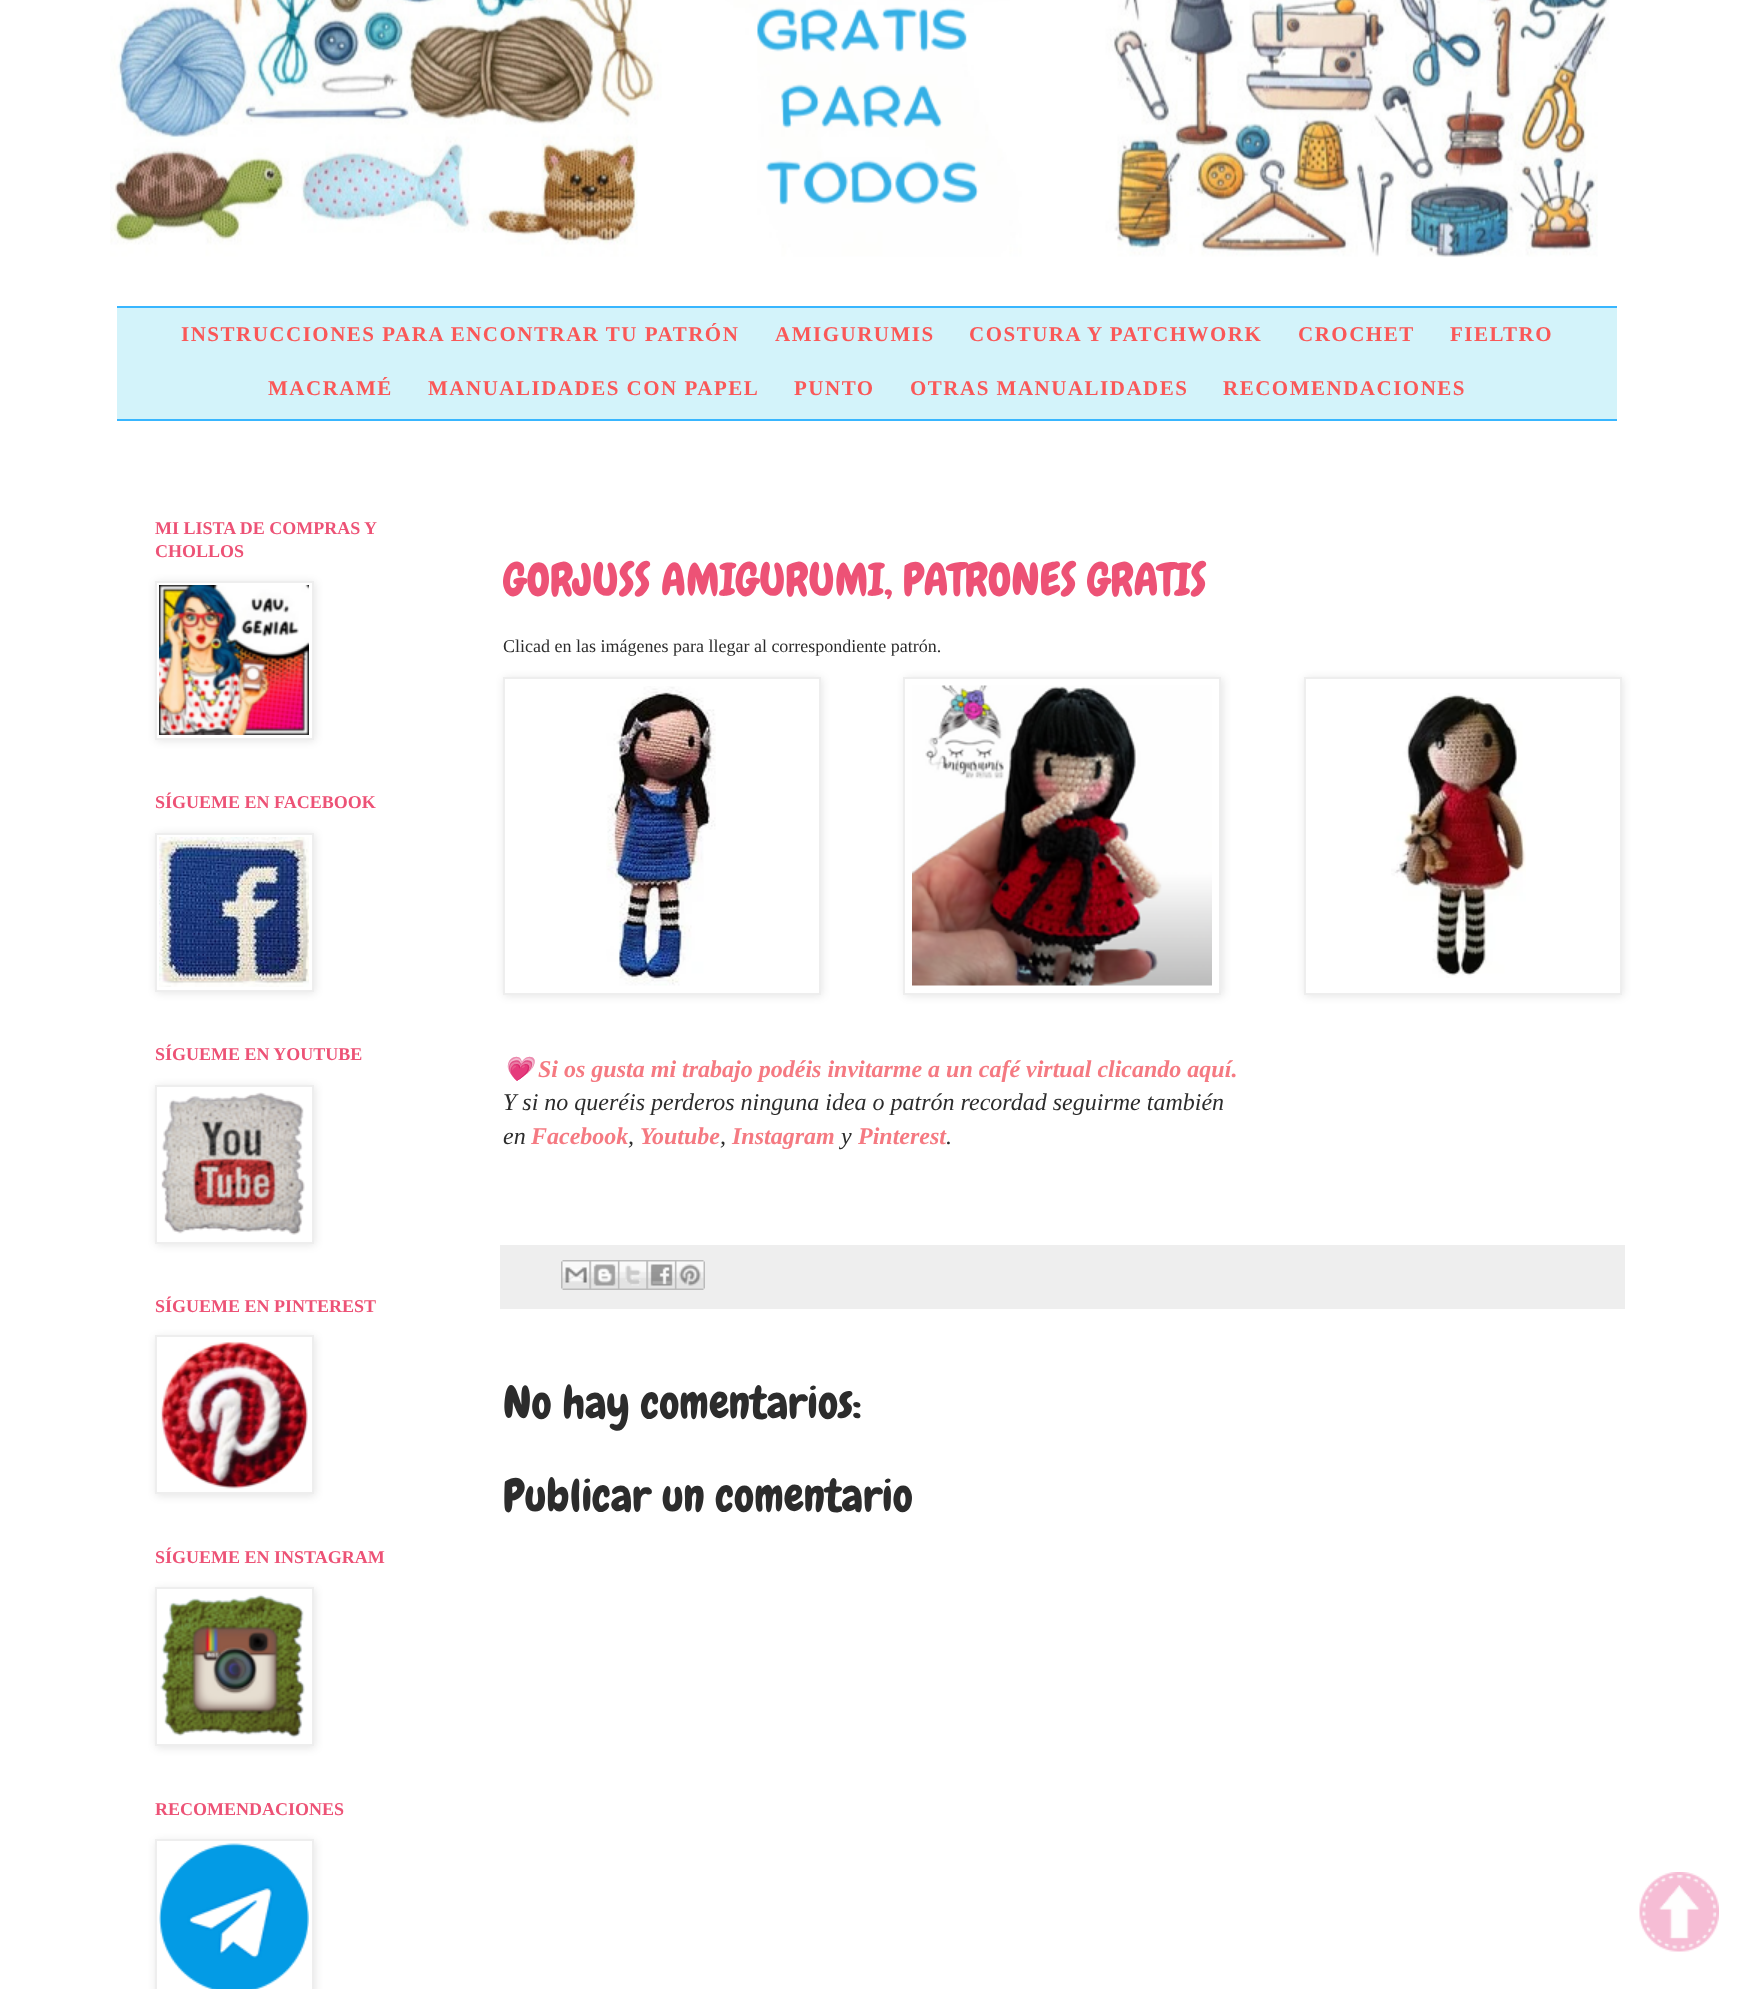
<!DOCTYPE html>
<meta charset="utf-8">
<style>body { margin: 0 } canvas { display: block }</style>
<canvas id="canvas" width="1748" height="1989"></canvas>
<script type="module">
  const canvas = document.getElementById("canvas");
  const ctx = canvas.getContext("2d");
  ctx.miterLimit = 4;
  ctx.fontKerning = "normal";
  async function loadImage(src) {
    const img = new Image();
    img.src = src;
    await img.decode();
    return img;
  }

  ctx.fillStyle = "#ffffff";
  ctx.fillRect(0, 0, 1748, 1989);
  ctx.drawImage(await loadImage("img1.png"), 110, 0, 1500, 257);
  ctx.fillStyle = "#d3f3fa";
  ctx.fillRect(117, 308, 1500, 111);
  ctx.fillStyle = "#38b6ff";
  ctx.fillRect(117, 306, 1500, 2);
  ctx.fillRect(117, 419, 1500, 2);
  ctx.letterSpacing = "1.5px";
  ctx.font = "bold 21px Liberation Serif";
  ctx.fillStyle = "#fa5858";
  ctx.fillText("INSTRUCCIONES PARA ENCONTRAR TU PATRÓN", 181, 341);
  ctx.fillText("AMIGURUMIS", 775, 341);
  ctx.fillText("COSTURA Y PATCHWORK", 969, 341);
  ctx.fillText("CROCHET", 1298, 341);
  ctx.fillText("FIELTRO", 1450, 341);
  ctx.fillText("MACRAMÉ", 268, 395);
  ctx.fillText("MANUALIDADES CON PAPEL", 428, 395);
  ctx.fillText("PUNTO", 794, 395);
  ctx.fillText("OTRAS MANUALIDADES", 910, 395);
  ctx.fillText("RECOMENDACIONES", 1223, 395);
  ctx.letterSpacing = "0px";
  ctx.font = "bold 18px Liberation Serif";
  ctx.fillStyle = "#ed5276";
  ctx.fillText("MI LISTA DE COMPRAS Y", 155, 534);
  ctx.fillText("CHOLLOS", 155, 557);
  ctx.fillStyle = "rgba(0, 0, 0, 0.1)";
  ctx.filter = "blur(4px)";
  ctx.beginPath();
  ctx.rect(156, 582, 159, 159);
  ctx.fill();
  ctx.filter = "none";
  ctx.fillStyle = "#ffffff";
  ctx.beginPath();
  ctx.rect(156, 582, 157, 157);
  ctx.fill();
  ctx.strokeStyle = "#eeeeee";
  ctx.lineWidth = 2;
  ctx.stroke();
  ctx.drawImage(await loadImage("img2.png"), 159, 585, 150, 150);
  ctx.fillStyle = "#ed5276";
  ctx.fillText("SÍGUEME EN FACEBOOK", 155, 808);
  ctx.fillStyle = "rgba(0, 0, 0, 0.1)";
  ctx.filter = "blur(4px)";
  ctx.beginPath();
  ctx.rect(156, 834, 159, 159);
  ctx.fill();
  ctx.filter = "none";
  ctx.fillStyle = "#ffffff";
  ctx.beginPath();
  ctx.rect(156, 834, 157, 157);
  ctx.fill();
  ctx.stroke();
  ctx.drawImage(await loadImage("img3.png"), 159, 837, 150, 150);
  ctx.fillStyle = "#ed5276";
  ctx.fillText("SÍGUEME EN YOUTUBE", 155, 1060);
  ctx.fillStyle = "rgba(0, 0, 0, 0.1)";
  ctx.filter = "blur(4px)";
  ctx.beginPath();
  ctx.rect(156, 1086, 159, 159);
  ctx.fill();
  ctx.filter = "none";
  ctx.fillStyle = "#ffffff";
  ctx.beginPath();
  ctx.rect(156, 1086, 157, 157);
  ctx.fill();
  ctx.stroke();
  ctx.drawImage(await loadImage("img4.png"), 161, 1092, 144, 143);
  ctx.fillStyle = "#ed5276";
  ctx.fillText("SÍGUEME EN PINTEREST", 155, 1312);
  ctx.fillStyle = "rgba(0, 0, 0, 0.1)";
  ctx.filter = "blur(4px)";
  ctx.beginPath();
  ctx.rect(156, 1337, 159, 159);
  ctx.fill();
  ctx.filter = "none";
  ctx.fillStyle = "#ffffff";
  ctx.beginPath();
  ctx.rect(156, 1336, 157, 157);
  ctx.fill();
  ctx.stroke();
  ctx.drawImage(await loadImage("img5.png"), 160, 1341, 148, 148);
  ctx.fillStyle = "#ed5276";
  ctx.fillText("SÍGUEME EN INSTAGRAM", 155, 1563);
  ctx.fillStyle = "rgba(0, 0, 0, 0.1)";
  ctx.filter = "blur(4px)";
  ctx.beginPath();
  ctx.rect(156, 1589, 159, 159);
  ctx.fill();
  ctx.filter = "none";
  ctx.fillStyle = "#ffffff";
  ctx.beginPath();
  ctx.rect(156, 1588, 157, 157);
  ctx.fill();
  ctx.stroke();
  ctx.drawImage(await loadImage("img6.png"), 160, 1594, 145, 144);
  ctx.fillStyle = "#ed5276";
  ctx.fillText("RECOMENDACIONES", 155, 1815);
  ctx.fillStyle = "rgba(0, 0, 0, 0.1)";
  ctx.filter = "blur(4px)";
  ctx.beginPath();
  ctx.rect(156, 1841, 159, 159);
  ctx.fill();
  ctx.filter = "none";
  ctx.fillStyle = "#ffffff";
  ctx.beginPath();
  ctx.rect(156, 1840, 157, 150);
  ctx.fill();
  ctx.stroke();
  ctx.drawImage(await loadImage("img7.png"), 159, 1843, 150, 146);
  ctx.font = "45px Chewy";
  ctx.fillStyle = "#ed5276";
  ctx.fillText("GORJUSS AMIGURUMI, PATRONES GRATIS", 503, 595);
  ctx.font = "18px Liberation Serif";
  ctx.fillStyle = "#2c2c2c";
  ctx.fillText("Clicad en las imágenes para llegar al correspondiente patrón.", 503, 652);
  ctx.fillStyle = "rgba(0, 0, 0, 0.1)";
  ctx.filter = "blur(4px)";
  ctx.beginPath();
  ctx.rect(504, 678, 318, 318);
  ctx.fill();
  ctx.filter = "none";
  ctx.fillStyle = "#ffffff";
  ctx.beginPath();
  ctx.rect(504, 678, 316, 316);
  ctx.fill();
  ctx.stroke();
  ctx.drawImage(await loadImage("img8.png"), 606, 686, 110, 300);
  ctx.fillStyle = "rgba(0, 0, 0, 0.1)";
  ctx.filter = "blur(4px)";
  ctx.beginPath();
  ctx.rect(905, 678, 318, 318);
  ctx.fill();
  ctx.filter = "none";
  ctx.filter = "blur(4px)";
  ctx.beginPath();
  ctx.rect(1305, 678, 318, 318);
  ctx.fill();
  ctx.filter = "none";
  ctx.fillStyle = "#ffffff";
  ctx.beginPath();
  ctx.rect(1305, 678, 316, 316);
  ctx.fill();
  ctx.stroke();
  ctx.drawImage(await loadImage("img9.png"), 1391, 693, 135, 285);
  ctx.beginPath();
  ctx.rect(904, 678, 316, 316);
  ctx.fill();
  ctx.stroke();
  ctx.drawImage(await loadImage("img10.png"), 912, 685, 300, 301);
  ctx.font = "italic 24px Noto Color Emoji";
  ctx.fillStyle = "#2c2c2c";
  ctx.fillText("💗", 503, 1077);
  ctx.font = "italic bold 24px Liberation Serif";
  ctx.fillStyle = "#f57a82";
  ctx.fillText("Si os gusta mi trabajo podéis invitarme a un café virtual clicando aquí.", 538, 1077);
  ctx.font = "italic 24px Liberation Serif";
  ctx.fillStyle = "#2c2c2c";
  ctx.fillText("Y si no queréis perderos ninguna idea o patrón recordad seguirme también", 503, 1110);
  ctx.fillText("en", 503, 1144);
  ctx.font = "italic bold 24px Liberation Serif";
  ctx.fillStyle = "#f57a82";
  ctx.fillText("Facebook", 531, 1144);
  ctx.font = "italic 24px Liberation Serif";
  ctx.fillStyle = "#2c2c2c";
  ctx.fillText(",", 628, 1144);
  ctx.font = "italic bold 24px Liberation Serif";
  ctx.fillStyle = "#f57a82";
  ctx.fillText("Youtube", 640, 1144);
  ctx.font = "italic 24px Liberation Serif";
  ctx.fillStyle = "#2c2c2c";
  ctx.fillText(",", 720, 1144);
  ctx.font = "italic bold 24px Liberation Serif";
  ctx.fillStyle = "#f57a82";
  ctx.fillText("Instagram", 732, 1144);
  ctx.font = "italic 24px Liberation Serif";
  ctx.fillStyle = "#2c2c2c";
  ctx.fillText("y", 841, 1144);
  ctx.font = "italic bold 24px Liberation Serif";
  ctx.fillStyle = "#f57a82";
  ctx.fillText("Pinterest", 858, 1144);
  ctx.font = "italic 24px Liberation Serif";
  ctx.fillStyle = "#2c2c2c";
  ctx.fillText(".", 946, 1144);
  ctx.fillStyle = "#eeeeee";
  ctx.fillRect(500, 1245, 1125, 64);
  ctx.drawImage(await loadImage("img11.png"), 561, 1260, 29, 30);
  ctx.drawImage(await loadImage("img12.png"), 589, 1260, 29, 30);
  ctx.drawImage(await loadImage("img13.png"), 618, 1260, 29, 30);
  ctx.drawImage(await loadImage("img14.png"), 646, 1260, 29, 30);
  ctx.drawImage(await loadImage("img15.png"), 675, 1260, 30, 30);
  ctx.font = "45px Chewy";
  ctx.fillStyle = "#2c2c2c";
  ctx.fillText("No hay comentarios:", 503, 1418);
  ctx.fillText("Publicar un comentario", 503, 1511);
  ctx.drawImage(await loadImage("img16.png"), 1639, 1872, 80, 80);
</script>
